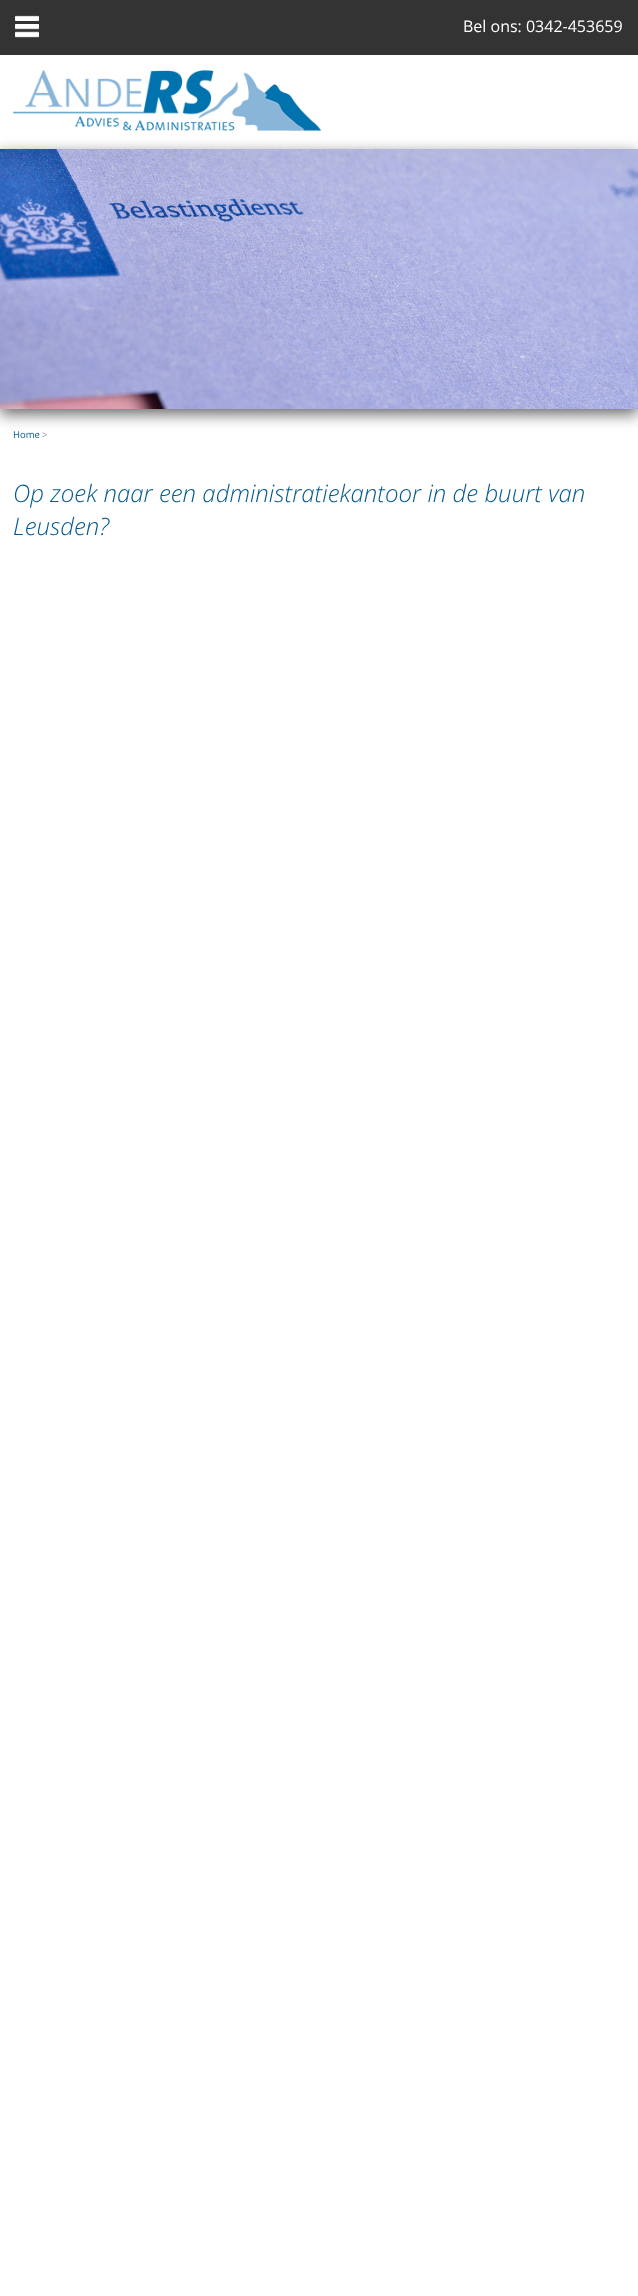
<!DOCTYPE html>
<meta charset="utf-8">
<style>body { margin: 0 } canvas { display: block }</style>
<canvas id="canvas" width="638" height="2296"></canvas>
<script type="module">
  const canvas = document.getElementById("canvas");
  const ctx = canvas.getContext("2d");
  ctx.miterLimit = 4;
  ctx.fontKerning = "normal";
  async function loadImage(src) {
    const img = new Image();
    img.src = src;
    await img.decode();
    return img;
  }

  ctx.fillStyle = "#ffffff";
  ctx.fillRect(0, 0, 638, 2296);
  ctx.drawImage(await loadImage("img3.png"), 13, 70, 308, 61);
  ctx.fillStyle = "rgba(50, 50, 50, 0.75)";
  ctx.filter = "blur(7.5px)";
  ctx.beginPath();
  ctx.rect(0, 154, 638, 260);
  ctx.fill();
  ctx.filter = "none";
  ctx.fillStyle = "#333333";
  ctx.fillRect(0, 0, 638, 55);
  ctx.drawImage(await loadImage("img1.png"), 15, 15, 24, 23);
  ctx.font = "16px Open Sans";
  ctx.fillStyle = "#ffffff";
  ctx.fillText("Bel ons: 0342-453659", 463, 32);
  ctx.drawImage(await loadImage("img2.png"), 0, 149, 638, 260);
  ctx.font = "9.5px Open Sans";
  ctx.fillStyle = "#055a8d";
  ctx.fillText("Home", 13, 438);
  ctx.fillStyle = "#999999";
  ctx.fillText(">", 42, 438);
  ctx.font = "italic 300 24px Open Sans";
  ctx.fillStyle = "#055a8d";
  ctx.fillText("Op zoek naar een administratiekantoor in de buurt van", 13, 502);
  ctx.fillText("Leusden?", 13, 535);
</script>
